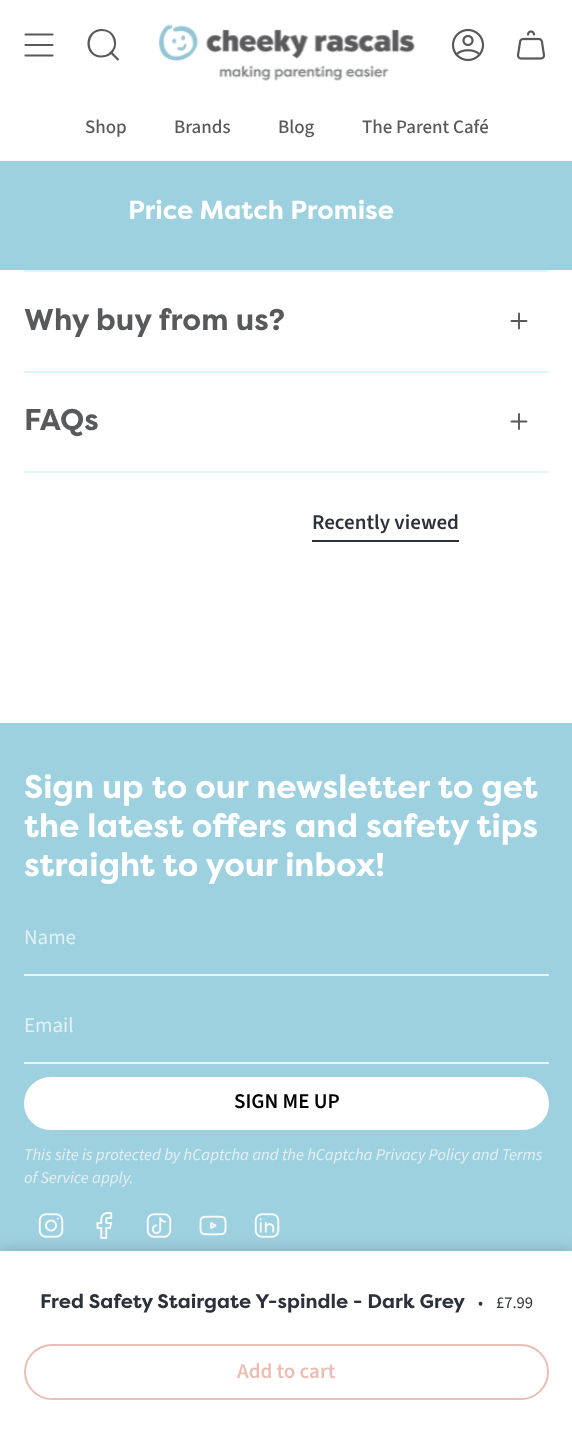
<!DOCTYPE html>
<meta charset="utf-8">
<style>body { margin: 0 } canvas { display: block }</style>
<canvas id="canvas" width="572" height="1431"></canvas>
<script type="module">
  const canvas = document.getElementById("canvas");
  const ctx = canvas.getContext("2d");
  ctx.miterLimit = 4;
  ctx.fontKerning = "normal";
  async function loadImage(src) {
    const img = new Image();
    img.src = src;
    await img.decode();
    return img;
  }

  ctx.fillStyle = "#ffffff";
  ctx.fillRect(0, 0, 572, 1431);
  ctx.beginPath();
  ctx.moveTo(25.5, 34.5);
  ctx.lineTo(52.5, 34.5);
  ctx.moveTo(25.5, 45);
  ctx.lineTo(52.5, 45);
  ctx.moveTo(25.5, 55.5);
  ctx.lineTo(52.5, 55.5);
  ctx.strokeStyle = "#58595b";
  ctx.lineWidth = 2.2;
  ctx.lineCap = "round";
  ctx.lineJoin = "round";
  ctx.stroke();
  ctx.beginPath();
  ctx.moveTo(102, 30);
  ctx.bezierCurveTo(114.5, 30, 120, 46.5, 109.5, 54);
  ctx.bezierCurveTo(107, 56, 104, 56.5, 101, 56.5);
  ctx.bezierCurveTo(84, 56, 84.5, 30, 102, 30);
  ctx.closePath();
  ctx.moveTo(111, 52.5);
  ctx.lineTo(118.5, 60);
  ctx.lineCap = "butt";
  ctx.lineJoin = "miter";
  ctx.stroke();
  ctx.drawImage(await loadImage("img1.png"), 158, 24, 257, 57);
  ctx.drawImage(await loadImage("img2.png"), 451, 28, 34, 34);
  ctx.drawImage(await loadImage("img3.png"), 517, 30, 28, 30);
  ctx.font = "500 19px Source Sans Pro";
  ctx.fillStyle = "#58595b";
  ctx.fillText("Shop", 85, 133);
  ctx.fillText("Brands", 174, 133);
  ctx.fillText("Blog", 278, 133);
  ctx.fillText("The Parent Café", 362, 133);
  ctx.fillStyle = "#9ed1e0";
  ctx.fillRect(0, 161, 572, 109);
  ctx.font = "bold 26.25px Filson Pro";
  ctx.fillStyle = "#ffffff";
  ctx.fillText("Price Match Promise", 128, 219);
  ctx.fillStyle = "#e1f5fd";
  ctx.fillRect(24, 270, 525, 2);
  ctx.font = "bold 30px Filson Pro";
  ctx.fillStyle = "#58595b";
  ctx.fillText("Why buy from us?", 24, 330);
  ctx.beginPath();
  ctx.moveTo(511.5, 321);
  ctx.lineTo(519, 321);
  ctx.moveTo(526.5, 321);
  ctx.lineTo(519, 321);
  ctx.moveTo(519, 321);
  ctx.lineTo(519, 313.5);
  ctx.moveTo(519, 321);
  ctx.lineTo(519, 328.5);
  ctx.lineWidth = 1.9;
  ctx.lineCap = "round";
  ctx.lineJoin = "round";
  ctx.stroke();
  ctx.fillStyle = "#e1f5fd";
  ctx.fillRect(24, 371, 525, 2);
  ctx.fillRect(24, 471, 525, 2);
  ctx.fillStyle = "#58595b";
  ctx.fillText("FAQs", 24, 430);
  ctx.beginPath();
  ctx.moveTo(511.5, 421.5);
  ctx.lineTo(519, 421.5);
  ctx.moveTo(526.5, 421.5);
  ctx.lineTo(519, 421.5);
  ctx.moveTo(519, 421.5);
  ctx.lineTo(519, 414);
  ctx.moveTo(519, 421.5);
  ctx.lineTo(519, 429);
  ctx.stroke();
  ctx.font = "600 21px Source Sans Pro";
  ctx.fillStyle = "#2d3139";
  ctx.fillText("Recently viewed", 312, 529);
  ctx.fillRect(312, 540, 147, 2);
  ctx.fillStyle = "#9ed1e0";
  ctx.fillRect(0, 723, 572, 528);
  ctx.drawImage(await loadImage("img4.png"), 38, 1213, 26, 25);
  ctx.drawImage(await loadImage("img5.png"), 96, 1212, 17, 27);
  ctx.drawImage(await loadImage("img6.png"), 146, 1213, 26, 25);
  ctx.drawImage(await loadImage("img7.png"), 199, 1215, 28, 21);
  ctx.drawImage(await loadImage("img8.png"), 254, 1213, 26, 25);
  ctx.fillStyle = "rgba(0, 0, 0, 0.2)";
  ctx.filter = "blur(7.5px)";
  ctx.beginPath();
  ctx.rect(0, 1251, 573, 180);
  ctx.fill();
  ctx.filter = "none";
  ctx.fillStyle = "#ffffff";
  ctx.fillRect(0, 1251, 572, 180);
  ctx.font = "bold 19.7px Filson Pro";
  ctx.fillStyle = "#2d3139";
  ctx.fillText("Fred Safety Stairgate Y-spindle - Dark Grey", 40, 1308);
  ctx.font = "16.55px Source Sans Pro";
  ctx.fillText("•", 478, 1308);
  ctx.fillText("£7.99", 496, 1308);
  ctx.beginPath();
  ctx.roundRect(25, 1345, 523, 54, 27);
  ctx.strokeStyle = "#eabeb5";
  ctx.lineWidth = 2;
  ctx.lineJoin = "miter";
  ctx.stroke();
  ctx.font = "600 21px Source Sans Pro";
  ctx.fillStyle = "#eabeb5";
  ctx.fillText("Add to cart", 237, 1378);
  ctx.font = "bold 32.75px Filson Pro";
  ctx.fillStyle = "#ffffff";
  ctx.fillText("Sign up to our newsletter to get", 24, 798);
  ctx.fillText("the latest offers and safety tips", 24, 837);
  ctx.fillText("straight to your inbox!", 24, 876);
  ctx.fillStyle = "#ebf5f8";
  ctx.fillRect(24, 974, 525, 2);
  ctx.font = "21px Source Sans Pro";
  ctx.fillStyle = "#e3f0f4";
  ctx.fillText("Name", 24, 944);
  ctx.fillStyle = "#ebf5f8";
  ctx.fillRect(24, 1062, 525, 2);
  ctx.fillStyle = "#e3f0f4";
  ctx.fillText("Email", 24, 1032);
  ctx.fillStyle = "#ffffff";
  ctx.beginPath();
  ctx.roundRect(25, 1078, 523, 51, 25.5);
  ctx.fill();
  ctx.strokeStyle = "#ffffff";
  ctx.stroke();
  ctx.font = "600 21px Source Sans Pro";
  ctx.fillStyle = "#000000";
  ctx.fillText("SIGN ME UP", 234, 1108);
  ctx.font = "italic 16.55px Source Sans Pro";
  ctx.fillStyle = "#e3f0f4";
  ctx.fillText("This site is protected by hCaptcha and the hCaptcha Privacy Policy and Terms", 24, 1160);
  ctx.fillText("of Service apply.", 24, 1183);
</script>
